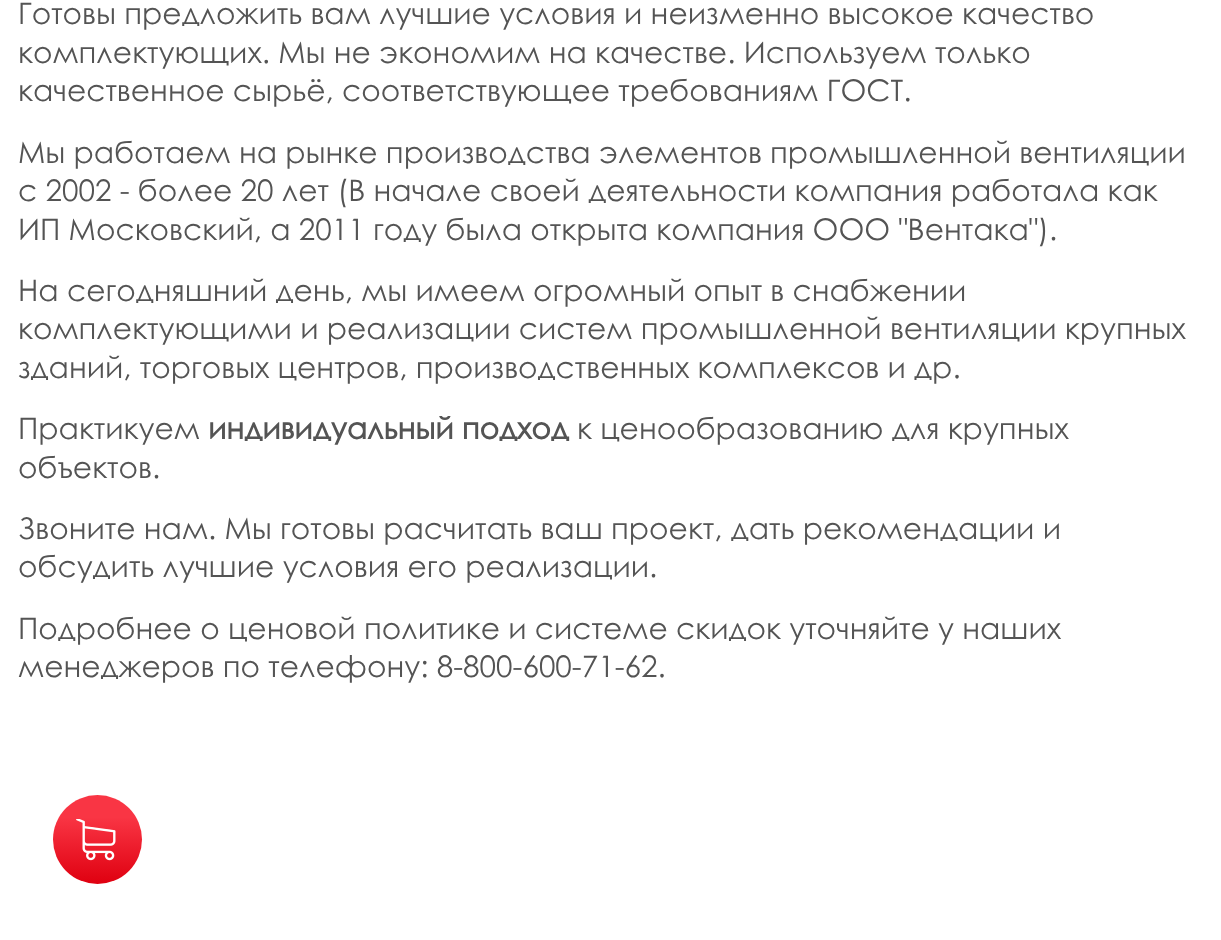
<!DOCTYPE html>
<meta charset="utf-8">
<style>body { margin: 0 } canvas { display: block }</style>
<canvas id="canvas" width="1221" height="940"></canvas>
<script type="module">
  const canvas = document.getElementById("canvas");
  const ctx = canvas.getContext("2d");
  ctx.miterLimit = 4;
  ctx.fontKerning = "normal";
  async function loadImage(src) {
    const img = new Image();
    img.src = src;
    await img.decode();
    return img;
  }
  let gradient;

  ctx.fillStyle = "#ffffff";
  ctx.fillRect(0, 0, 1221, 940);
  ctx.font = "29.75px Century Gothic";
  ctx.fillStyle = "#545454";
  ctx.fillText("Готовы предложить вам лучшие условия и неизменно высокое качество", 18, 24);
  ctx.fillText("комплектующих. Мы не экономим на качестве. Используем только", 18, 63);
  ctx.fillText("качественное сырьё, соответствующее требованиям ГОСТ.", 18, 101);
  ctx.fillText("Мы работаем на рынке производства элементов промышленной вентиляции", 18, 163);
  ctx.fillText("с 2002 - более 20 лет (В начале своей деятельности компания работала как", 18, 201);
  ctx.fillText("ИП Московский, а 2011 году была открыта компания ООО \"Вентака\").", 18, 240);
  ctx.fillText("На сегодняшний день, мы имеем огромный опыт в снабжении", 18, 301);
  ctx.fillText("комплектующими и реализации систем промышленной вентиляции крупных", 18, 339);
  ctx.fillText("зданий, торговых центров, производственных комплексов и др.", 18, 378);
  ctx.fillText("Практикуем", 18, 439);
  ctx.font = "bold 29.75px Century Gothic";
  ctx.fillText("индивидуальный подход", 208, 439);
  ctx.font = "29.75px Century Gothic";
  ctx.fillText("к ценообразованию для крупных", 577, 439);
  ctx.fillText("объектов.", 18, 478);
  ctx.fillText("Звоните нам. Мы готовы расчитать ваш проект, дать рекомендации и", 18, 539);
  ctx.fillText("обсудить лучшие условия его реализации.", 18, 577);
  ctx.fillText("Подробнее о ценовой политике и системе скидок уточняйте у наших", 18, 639);
  ctx.fillText("менеджеров по телефону: 8-800-600-71-62.", 18, 677);
  gradient = ctx.createLinearGradient(97, 884, 97, 795);
  gradient.addColorStop(0, "#df0010");
  gradient.addColorStop(0.75, "#f93544");
  ctx.fillStyle = gradient;
  ctx.beginPath();
  ctx.arc(97.5, 839.5, 44.5, 0, Math.PI * 2);
  ctx.fill();
  ctx.drawImage(await loadImage("img1.png"), 76, 819, 40, 42);
</script>
